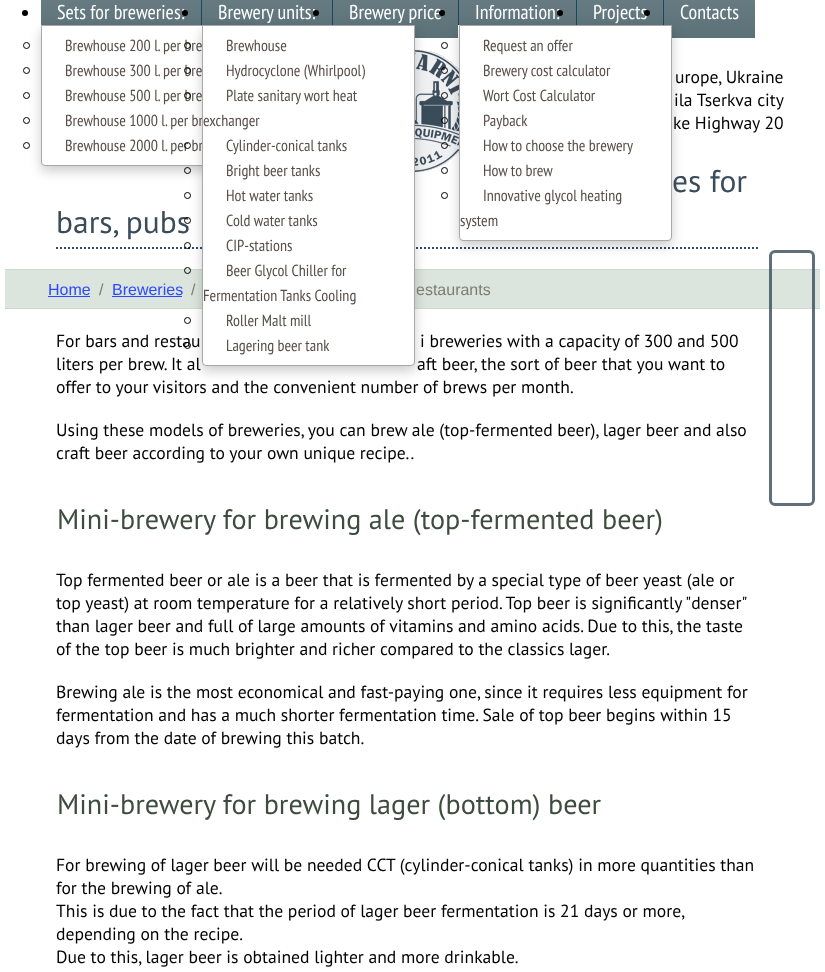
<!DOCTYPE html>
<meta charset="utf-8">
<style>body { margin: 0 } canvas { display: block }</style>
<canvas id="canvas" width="825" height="972"></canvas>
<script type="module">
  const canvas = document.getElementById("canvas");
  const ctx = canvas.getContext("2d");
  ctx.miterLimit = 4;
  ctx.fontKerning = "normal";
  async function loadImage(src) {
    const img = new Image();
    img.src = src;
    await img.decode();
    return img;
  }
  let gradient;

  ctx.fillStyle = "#ffffff";
  ctx.fillRect(0, 0, 825, 972);
  ctx.fillStyle = "#000000";
  ctx.beginPath();
  ctx.arc(25, 13, 3, 0, Math.PI * 2);
  ctx.fill();
  gradient = ctx.createLinearGradient(121, -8, 121, 38);
  gradient.addColorStop(0, "#697d83");
  gradient.addColorStop(1, "#5b7178");
  ctx.fillStyle = gradient;
  ctx.fillRect(41, 0, 160, 25);
  ctx.font = "20px PT Sans Narrow";
  ctx.fillStyle = "#ffffff";
  ctx.fillText("Sets for breweries:", 57, 19);
  ctx.fillStyle = "#1c4957";
  ctx.fillRect(201, 0, 1, 25);
  ctx.fillStyle = "#000000";
  ctx.beginPath();
  ctx.arc(185, 13, 3, 0, Math.PI * 2);
  ctx.fill();
  gradient = ctx.createLinearGradient(267, -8, 267, 38);
  gradient.addColorStop(0, "#697d83");
  gradient.addColorStop(1, "#5b7178");
  ctx.fillStyle = gradient;
  ctx.fillRect(202, 0, 130, 25);
  ctx.fillStyle = "rgba(0, 0, 0, 0.2)";
  ctx.filter = "blur(6px)";
  ctx.beginPath();
  ctx.roundRect(41, 30, 213, 141, 4);
  ctx.fill();
  ctx.filter = "none";
  ctx.fillStyle = "#ffffff";
  ctx.beginPath();
  ctx.roundRect(41.5, 25.5, 212, 140, [0, 0, 3.5, 3.5]);
  ctx.fill();
  ctx.strokeStyle = "#a8a8a8";
  ctx.stroke();
  ctx.beginPath();
  ctx.arc(26.5, 45.5, 3, 0, Math.PI * 2);
  ctx.strokeStyle = "#000000";
  ctx.stroke();
  ctx.font = "16px PT Sans Narrow";
  ctx.fillStyle = "#564e4b";
  ctx.fillText("Brewhouse 200 l. per bre", 65, 51);
  ctx.beginPath();
  ctx.arc(26.5, 70.5, 3, 0, Math.PI * 2);
  ctx.stroke();
  ctx.fillText("Brewhouse 300 l. per bre", 65, 76);
  ctx.beginPath();
  ctx.arc(26.5, 95.5, 3, 0, Math.PI * 2);
  ctx.stroke();
  ctx.fillText("Brewhouse 500 l. per bre", 65, 101);
  ctx.beginPath();
  ctx.arc(26.5, 120.5, 3, 0, Math.PI * 2);
  ctx.stroke();
  ctx.fillText("Brewhouse 1000 l. per br", 65, 126);
  ctx.beginPath();
  ctx.arc(26.5, 145.5, 3, 0, Math.PI * 2);
  ctx.stroke();
  ctx.fillText("Brewhouse 2000 l. per br", 65, 151);
  ctx.font = "20px PT Sans Narrow";
  ctx.fillStyle = "#ffffff";
  ctx.fillText("Brewery units:", 218, 19);
  ctx.fillStyle = "#1c4957";
  ctx.fillRect(332, 0, 1, 25);
  ctx.fillStyle = "#000000";
  ctx.beginPath();
  ctx.arc(316, 13, 3, 0, Math.PI * 2);
  ctx.fill();
  gradient = ctx.createLinearGradient(396, -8, 396, 38);
  gradient.addColorStop(0, "#697d83");
  gradient.addColorStop(1, "#5b7178");
  ctx.fillStyle = gradient;
  ctx.fillRect(333, 0, 125, 38);
  ctx.drawImage(await loadImage("img1.png"), 415, 50, 44, 122);
  ctx.beginPath();
  ctx.moveTo(56, 248);
  ctx.lineTo(759, 248);
  ctx.strokeStyle = "#3a4b59";
  ctx.lineWidth = 2;
  ctx.setLineDash([2, 2]);
  ctx.stroke();
  ctx.fillStyle = "#dbe4dd";
  ctx.fillRect(5, 270, 815, 38);
  ctx.fillStyle = "#cdd9d0";
  ctx.fillRect(5, 269, 815, 1);
  ctx.fillRect(5, 308, 815, 1);
  ctx.fillStyle = "rgba(0, 0, 0, 0.2)";
  ctx.filter = "blur(6px)";
  ctx.beginPath();
  ctx.roundRect(202, 30, 213, 341, 4);
  ctx.fill();
  ctx.filter = "none";
  ctx.fillStyle = "#ffffff";
  ctx.beginPath();
  ctx.roundRect(202.5, 25.5, 212, 340, [0, 0, 3.5, 3.5]);
  ctx.fill();
  ctx.strokeStyle = "#a8a8a8";
  ctx.lineWidth = 1;
  ctx.setLineDash([]);
  ctx.stroke();
  ctx.beginPath();
  ctx.arc(187.5, 45.5, 3, 0, Math.PI * 2);
  ctx.strokeStyle = "#000000";
  ctx.stroke();
  ctx.font = "16px PT Sans Narrow";
  ctx.fillStyle = "#564e4b";
  ctx.fillText("Brewhouse", 226, 51);
  ctx.beginPath();
  ctx.arc(187.5, 70.5, 3, 0, Math.PI * 2);
  ctx.stroke();
  ctx.fillText("Hydrocyclone (Whirlpool)", 226, 76);
  ctx.beginPath();
  ctx.arc(187.5, 95.5, 3, 0, Math.PI * 2);
  ctx.stroke();
  ctx.fillText("Plate sanitary wort heat", 226, 101);
  ctx.fillText("exchanger", 203, 126);
  ctx.beginPath();
  ctx.arc(187.5, 145.5, 3, 0, Math.PI * 2);
  ctx.stroke();
  ctx.fillText("Cylinder-conical tanks", 226, 151);
  ctx.beginPath();
  ctx.arc(187.5, 170.5, 3, 0, Math.PI * 2);
  ctx.stroke();
  ctx.fillText("Bright beer tanks", 226, 176);
  ctx.beginPath();
  ctx.arc(187.5, 195.5, 3, 0, Math.PI * 2);
  ctx.stroke();
  ctx.fillText("Hot water tanks", 226, 201);
  ctx.font = "31.5px PT Sans";
  ctx.fillStyle = "#3a4b59";
  ctx.fillText("bars, pubs", 56, 233);
  ctx.beginPath();
  ctx.arc(187.5, 220.5, 3, 0, Math.PI * 2);
  ctx.stroke();
  ctx.font = "16px PT Sans Narrow";
  ctx.fillStyle = "#564e4b";
  ctx.fillText("Cold water tanks", 226, 226);
  ctx.beginPath();
  ctx.arc(187.5, 245.5, 3, 0, Math.PI * 2);
  ctx.stroke();
  ctx.fillText("CIP-stations", 226, 251);
  ctx.beginPath();
  ctx.arc(187.5, 270.5, 3, 0, Math.PI * 2);
  ctx.stroke();
  ctx.fillText("Beer Glycol Chiller for", 226, 276);
  ctx.fillText("Fermentation Tanks Cooling", 203, 301);
  ctx.beginPath();
  ctx.arc(187.5, 320.5, 3, 0, Math.PI * 2);
  ctx.stroke();
  ctx.fillText("Roller Malt mill", 226, 326);
  ctx.beginPath();
  ctx.arc(187.5, 345.5, 3, 0, Math.PI * 2);
  ctx.stroke();
  ctx.fillText("Lagering beer tank", 226, 351);
  ctx.font = "20px PT Sans Narrow";
  ctx.fillStyle = "#ffffff";
  ctx.fillText("Brewery price", 349, 19);
  ctx.fillStyle = "#1c4957";
  ctx.fillRect(458, 0, 1, 25);
  ctx.fillStyle = "#000000";
  ctx.beginPath();
  ctx.arc(442, 13, 3, 0, Math.PI * 2);
  ctx.fill();
  gradient = ctx.createLinearGradient(518, -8, 518, 38);
  gradient.addColorStop(0, "#697d83");
  gradient.addColorStop(1, "#5b7178");
  ctx.fillStyle = gradient;
  ctx.fillRect(459, 0, 117, 25);
  ctx.fillStyle = "#ffffff";
  ctx.fillText("Information:", 475, 19);
  ctx.fillStyle = "#1c4957";
  ctx.fillRect(576, 0, 1, 25);
  ctx.fillStyle = "#000000";
  ctx.beginPath();
  ctx.arc(560, 13, 3, 0, Math.PI * 2);
  ctx.fill();
  gradient = ctx.createLinearGradient(620, -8, 620, 38);
  gradient.addColorStop(0, "#697d83");
  gradient.addColorStop(1, "#5b7178");
  ctx.fillStyle = gradient;
  ctx.fillRect(577, 0, 86, 25);
  ctx.fillStyle = "#1c4957";
  ctx.fillRect(663, 0, 1, 25);
  ctx.fillStyle = "#ffffff";
  ctx.fillText("Projects", 593, 19);
  ctx.fillStyle = "#000000";
  ctx.beginPath();
  ctx.arc(647, 13, 3, 0, Math.PI * 2);
  ctx.fill();
  gradient = ctx.createLinearGradient(710, -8, 710, 38);
  gradient.addColorStop(0, "#697d83");
  gradient.addColorStop(1, "#5b7178");
  ctx.fillStyle = gradient;
  ctx.fillRect(664, 0, 91, 38);
  ctx.fillStyle = "rgba(0, 0, 0, 0.2)";
  ctx.filter = "blur(6px)";
  ctx.beginPath();
  ctx.roundRect(459, 30, 213, 216, 4);
  ctx.fill();
  ctx.filter = "none";
  ctx.fillStyle = "#ffffff";
  ctx.beginPath();
  ctx.roundRect(459.5, 25.5, 212, 215, [0, 0, 3.5, 3.5]);
  ctx.fill();
  ctx.strokeStyle = "#a8a8a8";
  ctx.stroke();
  ctx.beginPath();
  ctx.arc(444.5, 45.5, 3, 0, Math.PI * 2);
  ctx.strokeStyle = "#000000";
  ctx.stroke();
  ctx.font = "16px PT Sans Narrow";
  ctx.fillStyle = "#564e4b";
  ctx.fillText("Request an offer", 483, 51);
  ctx.beginPath();
  ctx.arc(444.5, 70.5, 3, 0, Math.PI * 2);
  ctx.stroke();
  ctx.fillText("Brewery cost calculator", 483, 76);
  ctx.beginPath();
  ctx.arc(444.5, 95.5, 3, 0, Math.PI * 2);
  ctx.stroke();
  ctx.fillText("Wort Cost Calculator", 483, 101);
  ctx.beginPath();
  ctx.arc(444.5, 120.5, 3, 0, Math.PI * 2);
  ctx.stroke();
  ctx.fillText("Payback", 483, 126);
  ctx.beginPath();
  ctx.arc(444.5, 145.5, 3, 0, Math.PI * 2);
  ctx.stroke();
  ctx.fillText("How to choose the brewery", 483, 151);
  ctx.beginPath();
  ctx.arc(444.5, 170.5, 3, 0, Math.PI * 2);
  ctx.stroke();
  ctx.fillText("How to brew", 483, 176);
  ctx.beginPath();
  ctx.arc(444.5, 195.5, 3, 0, Math.PI * 2);
  ctx.stroke();
  ctx.fillText("Innovative glycol heating", 483, 201);
  ctx.fillText("system", 460, 226);
  ctx.font = "20px PT Sans Narrow";
  ctx.fillStyle = "#ffffff";
  ctx.fillText("Contacts", 680, 19);
  ctx.font = "17.6px PT Sans";
  ctx.fillStyle = "#000000";
  ctx.fillText("urope, Ukraine", 675, 83);
  ctx.fillText("ila Tserkva city", 674, 106);
  ctx.fillText("ke Highway 20", 673, 129);
  ctx.font = "31.5px PT Sans";
  ctx.fillStyle = "#3a4b59";
  ctx.fillText("es for", 672, 192);
  ctx.font = "16px Liberation Sans";
  ctx.fillStyle = "#2c49fd";
  ctx.fillText("Home", 48, 295);
  ctx.fillRect(48, 296, 42, 1);
  ctx.fillStyle = "#7c7d73";
  ctx.fillText("/", 99, 295);
  ctx.fillStyle = "#2c49fd";
  ctx.fillText("Breweries", 112, 295);
  ctx.fillRect(112, 296, 70, 1);
  ctx.fillStyle = "#7c7d73";
  ctx.fillText("/", 191, 295);
  ctx.fillText("estaurants", 416, 295);
  ctx.font = "17.6px PT Sans";
  ctx.fillStyle = "#000000";
  ctx.fillText("For bars and restau", 56, 347);
  ctx.fillText("i breweries with a capacity of 300 and 500", 420, 347);
  ctx.fillText("liters per brew. It al", 56, 370);
  ctx.fillText("aft beer, the sort of beer that you want to", 417, 370);
  ctx.fillText("offer to your visitors and the convenient number of brews per month.", 56, 393);
  ctx.fillText("Using these models of breweries, you can brew ale (top-fermented beer), lager beer and also", 56, 436);
  ctx.fillText("craft beer according to your own unique recipe..", 56, 459);
  ctx.font = "28.2px PT Sans";
  ctx.fillStyle = "#3e4c3f";
  ctx.fillText("Mini-brewery for brewing ale (top-fermented beer)", 57, 529);
  ctx.font = "17.6px PT Sans";
  ctx.fillStyle = "#000000";
  ctx.fillText("Top fermented beer or ale is a beer that is fermented by a special type of beer yeast (ale or", 56, 586);
  ctx.fillText("top yeast) at room temperature for a relatively short period. Top beer is significantly \"denser\"", 56, 609);
  ctx.fillText("than lager beer and full of large amounts of vitamins and amino acids. Due to this, the taste", 56, 632);
  ctx.fillText("of the top beer is much brighter and richer compared to the classics lager.", 56, 655);
  ctx.fillText("Brewing ale is the most economical and fast-paying one, since it requires less equipment for", 56, 698);
  ctx.fillText("fermentation and has a much shorter fermentation time. Sale of top beer begins within 15", 56, 721);
  ctx.fillText("days from the date of brewing this batch.", 56, 744);
  ctx.font = "28.2px PT Sans";
  ctx.fillStyle = "#3e4c3f";
  ctx.fillText("Mini-brewery for brewing lager (bottom) beer", 57, 814);
  ctx.font = "17.6px PT Sans";
  ctx.fillStyle = "#000000";
  ctx.fillText("For brewing of lager beer will be needed CCT (cylinder-conical tanks) in more quantities than", 56, 871);
  ctx.fillText("for the brewing of ale.", 56, 894);
  ctx.fillText("This is due to the fact that the period of lager beer fermentation is 21 days or more,", 56, 917);
  ctx.fillText("depending on the recipe.", 56, 940);
  ctx.fillText("Due to this, lager beer is obtained lighter and more drinkable.", 56, 963);
  ctx.beginPath();
  ctx.roundRect(770.5, 251.5, 43, 253, 4.5);
  ctx.strokeStyle = "rgba(58, 75, 89, 0.8)";
  ctx.lineWidth = 3;
  ctx.stroke();
</script>
